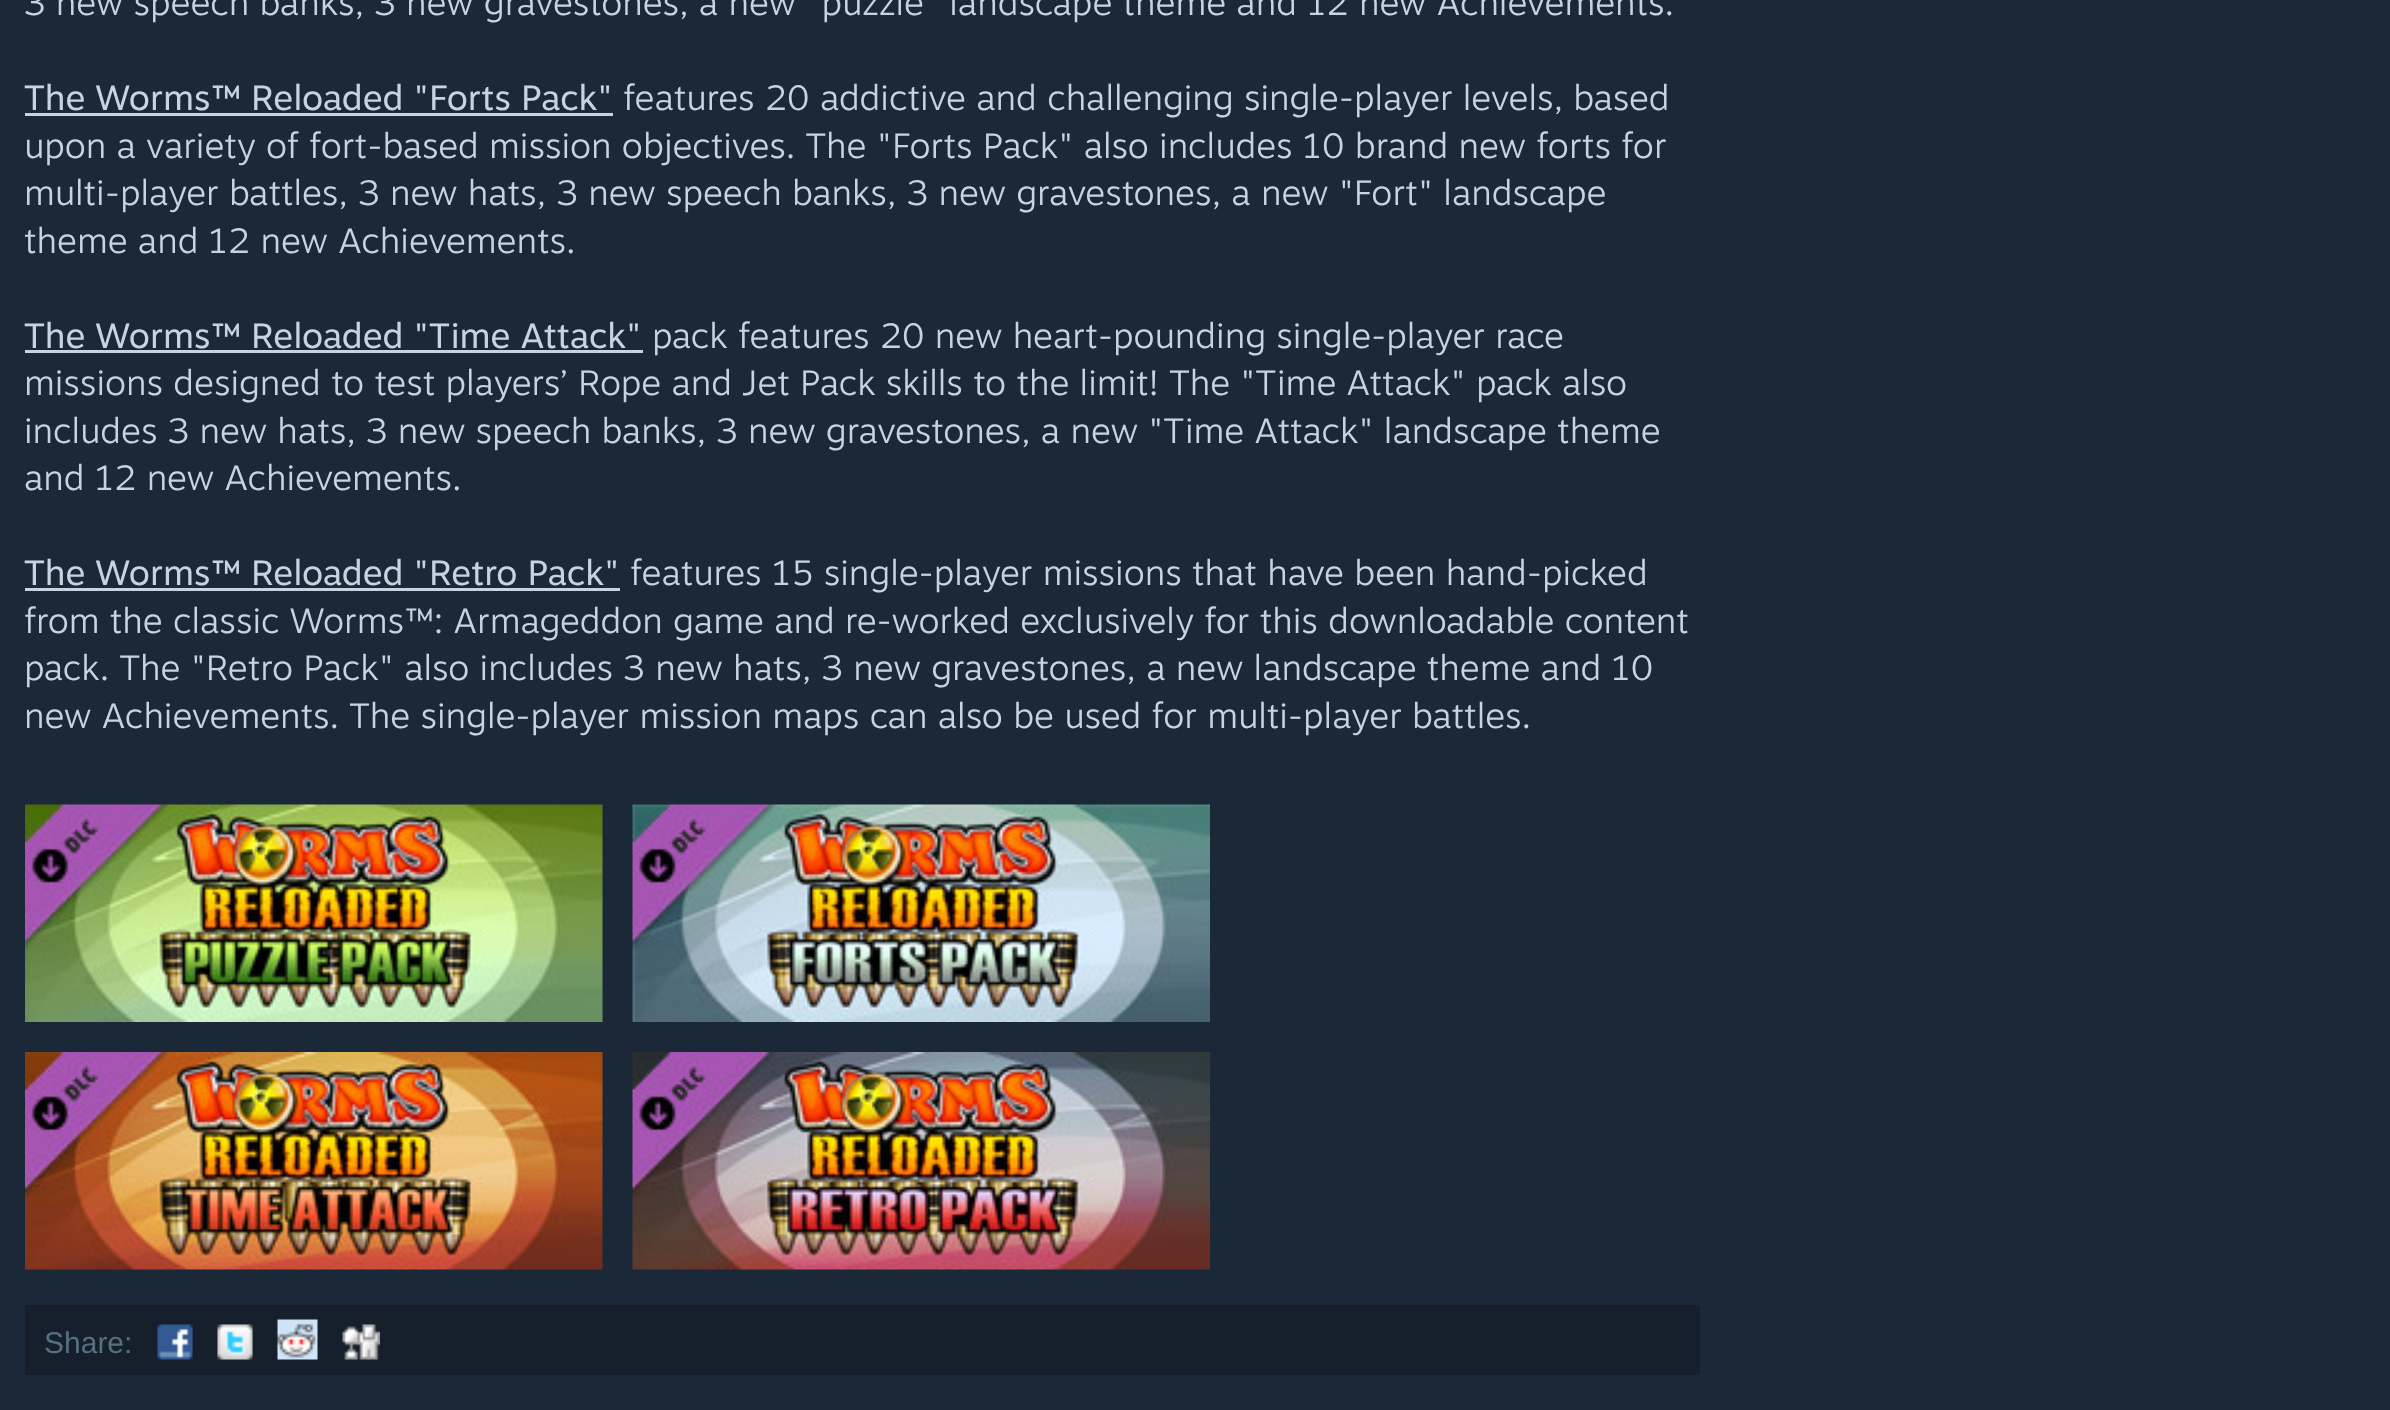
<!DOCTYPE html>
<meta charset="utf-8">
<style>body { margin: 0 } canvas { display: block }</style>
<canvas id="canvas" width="2390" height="1410"></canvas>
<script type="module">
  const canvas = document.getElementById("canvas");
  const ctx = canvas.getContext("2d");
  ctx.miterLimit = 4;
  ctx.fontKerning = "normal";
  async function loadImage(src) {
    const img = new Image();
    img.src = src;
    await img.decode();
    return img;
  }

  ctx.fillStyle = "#1b2838";
  ctx.fillRect(0, 0, 2390, 1410);
  ctx.font = "300 35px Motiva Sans";
  ctx.fillStyle = "#c6d4df";
  ctx.fillText("3 new speech banks, 3 new gravestones, a new \"puzzle\" landscape theme and 12 new Achievements.", 24, 15);
  ctx.font = "35px Motiva Sans";
  ctx.fillText("The Worms™ Reloaded \"Forts Pack\"", 24, 110);
  ctx.fillRect(25, 113, 588, 3);
  ctx.font = "300 35px Motiva Sans";
  ctx.fillText("features 20 addictive and challenging single-player levels, based", 623, 110);
  ctx.fillText("upon a variety of fort-based mission objectives. The \"Forts Pack\" also includes 10 brand new forts for", 24, 158);
  ctx.fillText("multi-player battles, 3 new hats, 3 new speech banks, 3 new gravestones, a new \"Fort\" landscape", 24, 205);
  ctx.fillText("theme and 12 new Achievements.", 24, 253);
  ctx.font = "35px Motiva Sans";
  ctx.fillText("The Worms™ Reloaded \"Time Attack\"", 24, 348);
  ctx.fillRect(25, 350, 618, 3);
  ctx.font = "300 35px Motiva Sans";
  ctx.fillText("pack features 20 new heart-pounding single-player race", 652, 348);
  ctx.fillText("missions designed to test players’ Rope and Jet Pack skills to the limit! The \"Time Attack\" pack also", 24, 395);
  ctx.fillText("includes 3 new hats, 3 new speech banks, 3 new gravestones, a new \"Time Attack\" landscape theme", 24, 443);
  ctx.fillText("and 12 new Achievements.", 24, 490);
  ctx.font = "35px Motiva Sans";
  ctx.fillText("The Worms™ Reloaded \"Retro Pack\"", 24, 585);
  ctx.fillRect(25, 588, 595, 3);
  ctx.font = "300 35px Motiva Sans";
  ctx.fillText("features 15 single-player missions that have been hand-picked", 630, 585);
  ctx.fillText("from the classic Worms™: Armageddon game and re-worked exclusively for this downloadable content", 24, 633);
  ctx.fillText("pack. The \"Retro Pack\" also includes 3 new hats, 3 new gravestones, a new landscape theme and 10", 24, 680);
  ctx.fillText("new Achievements. The single-player mission maps can also be used for multi-player battles.", 24, 728);
  ctx.drawImage(await loadImage("img1.png"), 25, 804, 578, 218);
  ctx.drawImage(await loadImage("img2.png"), 632, 804, 578, 218);
  ctx.drawImage(await loadImage("img3.png"), 25, 1052, 578, 218);
  ctx.drawImage(await loadImage("img4.png"), 632, 1052, 578, 218);
  ctx.fillStyle = "#16202d";
  ctx.fillRect(25, 1305, 1675, 70);
  ctx.font = "30px Liberation Sans";
  ctx.fillStyle = "#56707f";
  ctx.fillText("Share:", 44, 1353);
  ctx.drawImage(await loadImage("img5.png"), 157, 1324, 36, 36);
  ctx.drawImage(await loadImage("img6.png"), 217, 1324, 36, 36);
  ctx.drawImage(await loadImage("img7.png"), 277, 1319, 41, 41);
  ctx.drawImage(await loadImage("img8.png"), 342, 1324, 38, 36);
</script>
